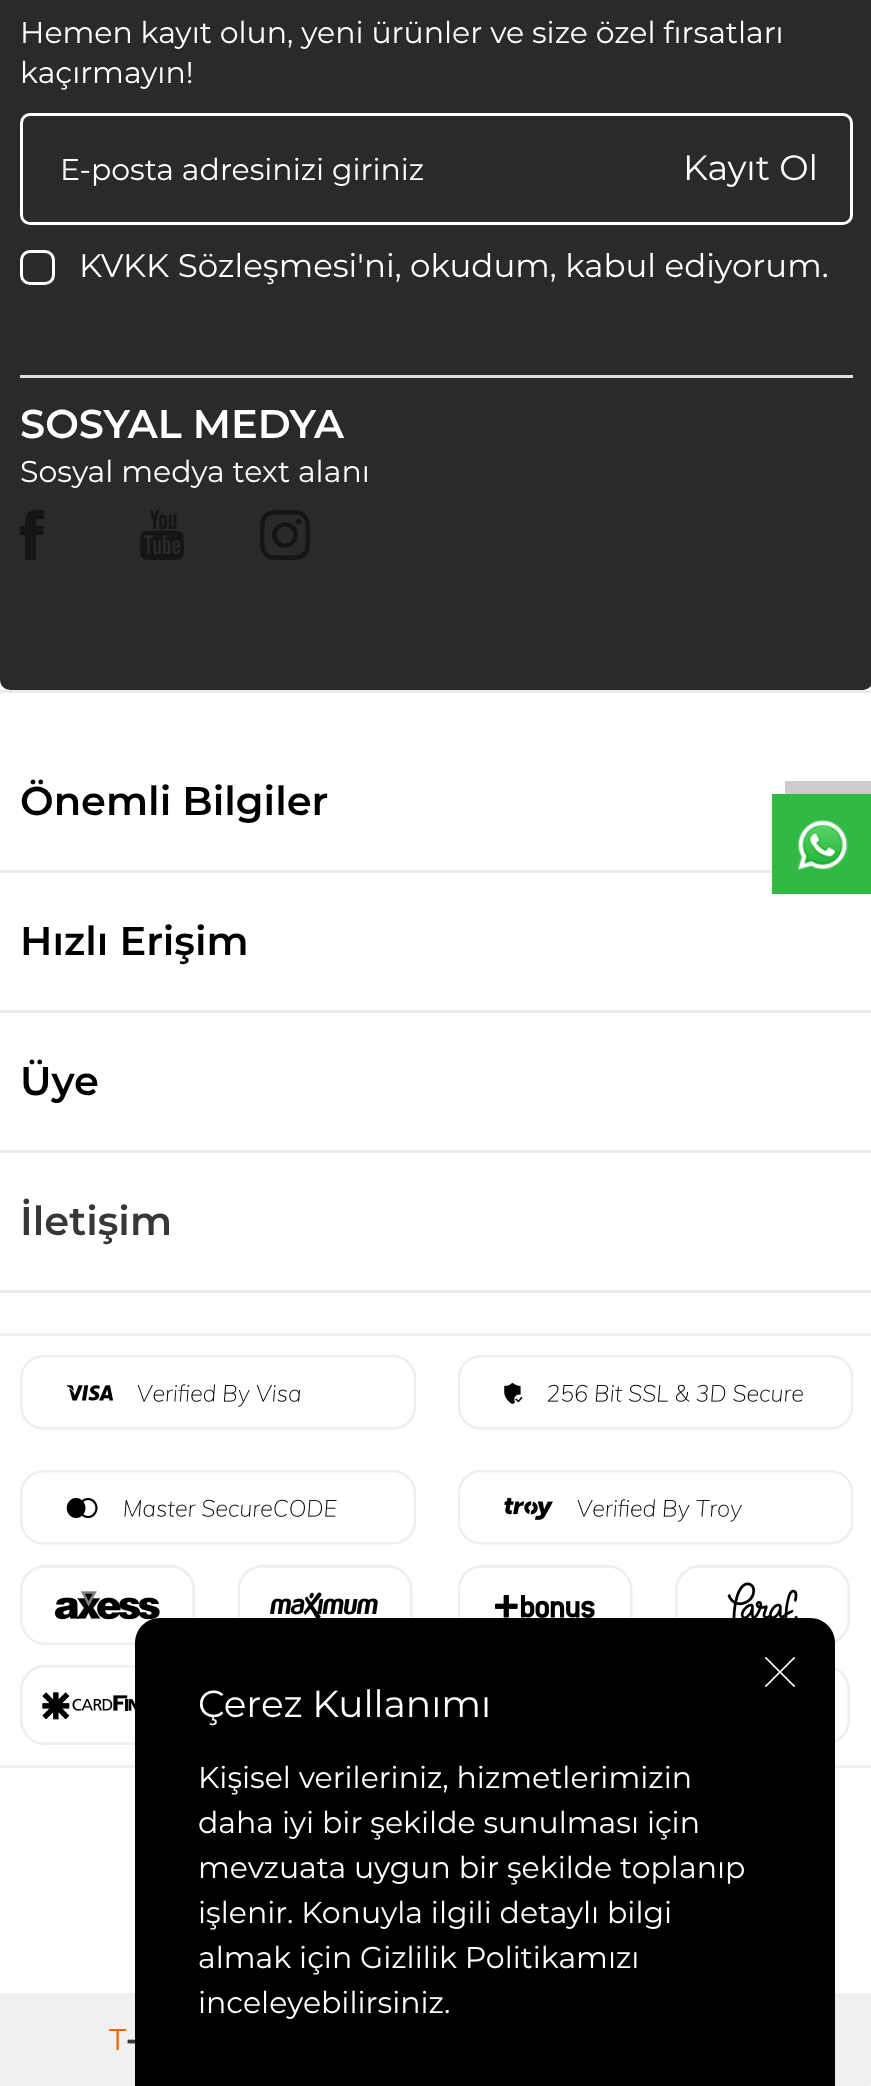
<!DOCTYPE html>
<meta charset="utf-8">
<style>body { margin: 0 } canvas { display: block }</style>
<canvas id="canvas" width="871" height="2086"></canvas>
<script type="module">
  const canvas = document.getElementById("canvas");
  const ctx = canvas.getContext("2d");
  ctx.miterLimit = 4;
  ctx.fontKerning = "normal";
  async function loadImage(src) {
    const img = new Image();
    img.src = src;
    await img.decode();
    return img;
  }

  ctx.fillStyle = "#ffffff";
  ctx.fillRect(0, 0, 871, 2086);
  ctx.fillStyle = "#eaeaea";
  ctx.fillRect(0, 690, 871, 3);
  ctx.fillStyle = "#2c2a28";
  ctx.beginPath();
  ctx.roundRect(0, -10, 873, 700, 10);
  ctx.fill();
  ctx.font = "30px Montserrat";
  ctx.fillStyle = "#ffffff";
  ctx.fillText("Hemen kayıt olun, yeni ürünler ve size özel fırsatları", 20, 43);
  ctx.fillText("kaçırmayın!", 20, 83);
  ctx.beginPath();
  ctx.roundRect(21.5, 114.5, 830, 109, 8.5);
  ctx.strokeStyle = "#ffffff";
  ctx.lineWidth = 3;
  ctx.stroke();
  ctx.fillText("E-posta adresinizi giriniz", 60, 180);
  ctx.font = "35px Montserrat";
  ctx.fillText("Kayıt Ol", 683, 180);
  ctx.beginPath();
  ctx.roundRect(21.5, 251.5, 32, 32, 8.5);
  ctx.stroke();
  ctx.font = "32.5px Montserrat";
  ctx.fillText("KVKK Sözleşmesi'ni, okudum, kabul ediyorum.", 79, 277);
  ctx.fillStyle = "#dddddd";
  ctx.fillRect(20, 375, 833, 3);
  ctx.font = "600 40px Montserrat";
  ctx.fillStyle = "#ffffff";
  ctx.fillText("SOSYAL MEDYA", 20, 438);
  ctx.font = "30px Montserrat";
  ctx.fillText("Sosyal medya text alanı", 20, 482);
  ctx.fillStyle = "#151515";
  ctx.beginPath();
  ctx.moveTo(36, 560);
  ctx.lineTo(25, 560);
  ctx.lineTo(25, 535);
  ctx.lineTo(20, 535);
  ctx.lineTo(20, 526);
  ctx.lineTo(25, 526);
  ctx.bezierCurveTo(25, 510, 29, 510, 44, 510);
  ctx.lineTo(44, 519);
  ctx.bezierCurveTo(36, 519, 36, 518, 36, 526);
  ctx.lineTo(44, 526);
  ctx.lineTo(43, 535);
  ctx.lineTo(36, 535);
  ctx.closePath();
  ctx.fill();
  ctx.drawImage(await loadImage("img1.png"), 140, 510, 44, 50);
  ctx.drawImage(await loadImage("img2.png"), 260, 510, 50, 50);
  ctx.fillStyle = "#eaeaea";
  ctx.fillRect(0, 870, 772, 3);
  ctx.font = "600 40px Montserrat";
  ctx.fillStyle = "#000000";
  ctx.fillText("Önemli Bilgiler", 20, 815);
  ctx.fillStyle = "#eaeaea";
  ctx.fillRect(0, 1010, 871, 3);
  ctx.fillStyle = "#000000";
  ctx.fillText("Hızlı Erişim", 20, 955);
  ctx.fillStyle = "#eaeaea";
  ctx.fillRect(0, 1150, 871, 3);
  ctx.fillStyle = "#000000";
  ctx.fillText("Üye", 20, 1095);
  ctx.fillStyle = "#eaeaea";
  ctx.fillRect(0, 1290, 871, 3);
  ctx.fillStyle = "#373738";
  ctx.fillText("İletişim", 20, 1235);
  ctx.fillStyle = "#f0f0f0";
  ctx.fillRect(0, 1333, 871, 3);
  ctx.fillRect(0, 1765, 871, 3);
  ctx.drawImage(await loadImage("img3.png"), 20, 1355, 396, 75);
  ctx.drawImage(await loadImage("img4.png"), 458, 1355, 395, 75);
  ctx.drawImage(await loadImage("img5.png"), 20, 1470, 396, 75);
  ctx.drawImage(await loadImage("img6.png"), 458, 1470, 395, 75);
  ctx.drawImage(await loadImage("img7.png"), 20, 1565, 175, 80);
  ctx.drawImage(await loadImage("img8.png"), 238, 1565, 175, 53);
  ctx.drawImage(await loadImage("img9.png"), 458, 1565, 175, 53);
  ctx.drawImage(await loadImage("img10.png"), 675, 1565, 175, 78);
  ctx.drawImage(await loadImage("img11.png"), 20, 1665, 115, 80);
  ctx.drawImage(await loadImage("img12.png"), 835, 1667, 15, 76);
  ctx.fillStyle = "#cccccc";
  ctx.beginPath();
  ctx.moveTo(785, 781);
  ctx.lineTo(785, 794);
  ctx.lineTo(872, 794);
  ctx.lineTo(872, 881);
  ctx.lineTo(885, 881);
  ctx.lineTo(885, 781);
  ctx.closePath();
  ctx.fill();
  ctx.fillStyle = "#30ba45";
  ctx.fillRect(772, 794, 99, 100);
  ctx.drawImage(await loadImage("img13.png"), 797, 820, 51, 51);
  ctx.fillStyle = "#f0f0f0";
  ctx.fillRect(0, 1993, 871, 93);
  ctx.font = "bold 30px Montserrat";
  ctx.fillStyle = "#373738";
  ctx.fillText("-", 126, 2050);
  ctx.fillStyle = "#000000";
  ctx.beginPath();
  ctx.moveTo(160, 1618);
  ctx.lineTo(810, 1618);
  ctx.bezierCurveTo(824, 1618, 835, 1629, 835, 1643);
  ctx.lineTo(835, 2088);
  ctx.lineTo(135, 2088);
  ctx.lineTo(135, 1643);
  ctx.bezierCurveTo(135, 1629, 146, 1618, 160, 1618);
  ctx.closePath();
  ctx.fill();
  ctx.drawImage(await loadImage("img14.png"), 765, 1657, 30, 30);
  ctx.font = "37.5px Montserrat";
  ctx.fillStyle = "#ffffff";
  ctx.fillText("Çerez Kullanımı", 198, 1717);
  ctx.font = "30px Montserrat";
  ctx.fillText("Kişisel verileriniz, hizmetlerimizin", 198, 1788);
  ctx.fillText("daha iyi bir şekilde sunulması için", 198, 1833);
  ctx.fillText("mevzuata uygun bir şekilde toplanıp", 198, 1878);
  ctx.fillText("işlenir. Konuyla ilgili detaylı bilgi", 198, 1923);
  ctx.fillText("almak için Gizlilik Politikamızı", 198, 1968);
  ctx.fillText("inceleyebilirsiniz.", 198, 2013);
  ctx.fillStyle = "#ec6408";
  ctx.fillText("T", 109, 2050);
  ctx.fillStyle = "#f5f5f5";
  ctx.fillRect(868, 2083, 3, 3);
</script>
